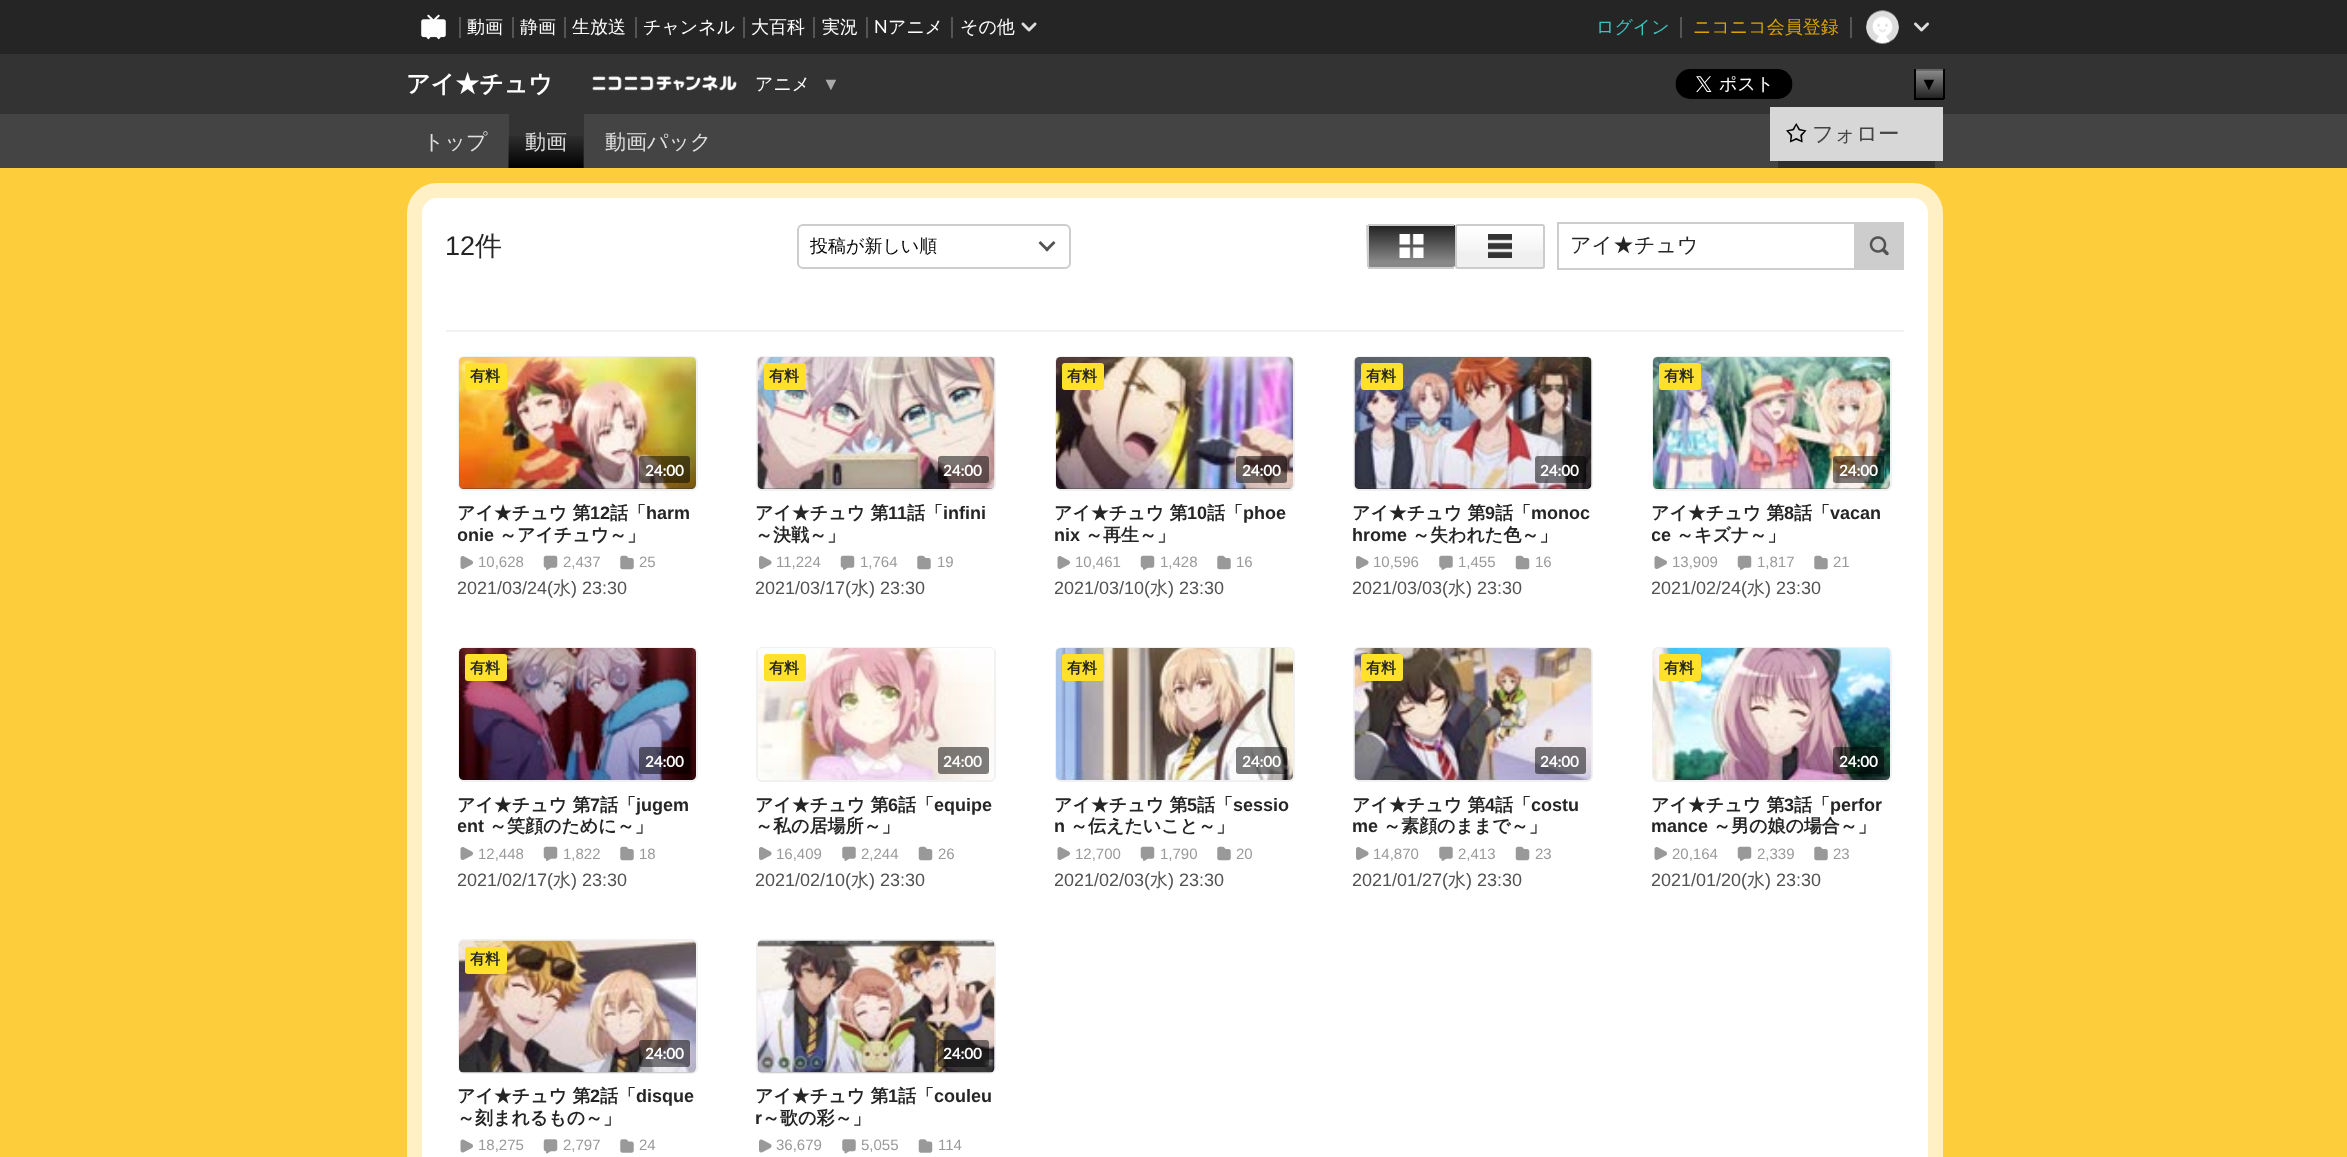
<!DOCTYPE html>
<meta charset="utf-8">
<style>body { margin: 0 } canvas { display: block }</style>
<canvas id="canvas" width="2347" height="1157"></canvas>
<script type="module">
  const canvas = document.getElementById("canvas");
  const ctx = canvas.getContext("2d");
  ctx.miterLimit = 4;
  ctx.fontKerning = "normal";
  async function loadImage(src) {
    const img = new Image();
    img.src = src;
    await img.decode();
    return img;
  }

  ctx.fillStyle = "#fecd3c";
  ctx.fillRect(0, 0, 2347, 1157);
  ctx.fillStyle = "#252525";
  ctx.fillRect(0, 0, 2347, 54);
  ctx.drawImage(await loadImage("img1.png"), 421, 14, 25, 26);
  ctx.fillStyle = "#555555";
  ctx.fillRect(459, 17, 2, 21);
  ctx.font = "500 18px WenQuanYi Zen Hei";
  ctx.fillStyle = "#ffffff";
  ctx.fillText("動画", 467, 33);
  ctx.fillStyle = "#555555";
  ctx.fillRect(512, 17, 2, 21);
  ctx.fillStyle = "#ffffff";
  ctx.fillText("静画", 520, 33);
  ctx.fillStyle = "#555555";
  ctx.fillRect(564, 17, 2, 21);
  ctx.fillStyle = "#ffffff";
  ctx.fillText("生放送", 572, 33);
  ctx.fillStyle = "#555555";
  ctx.fillRect(635, 17, 2, 21);
  ctx.fillStyle = "#ffffff";
  ctx.fillText("チャンネル", 643, 33);
  ctx.fillStyle = "#555555";
  ctx.fillRect(743, 17, 2, 21);
  ctx.fillStyle = "#ffffff";
  ctx.fillText("大百科", 751, 33);
  ctx.fillStyle = "#555555";
  ctx.fillRect(813, 17, 2, 21);
  ctx.fillStyle = "#ffffff";
  ctx.fillText("実況", 822, 33);
  ctx.fillStyle = "#555555";
  ctx.fillRect(866, 17, 2, 21);
  ctx.font = "18px Lato";
  ctx.fillStyle = "#ffffff";
  ctx.fillText("N", 874, 33);
  ctx.font = "500 18px WenQuanYi Zen Hei";
  ctx.fillText("アニメ", 888, 33);
  ctx.fillStyle = "#555555";
  ctx.fillRect(951, 17, 2, 21);
  ctx.fillStyle = "#ffffff";
  ctx.fillText("その他", 960, 33);
  ctx.drawImage(await loadImage("img2.png"), 1021, 22, 16, 10);
  ctx.fillStyle = "#39c4c1";
  ctx.fillText("ログイン", 1596, 33);
  ctx.fillStyle = "#555555";
  ctx.fillRect(1680, 17, 2, 21);
  ctx.fillStyle = "#d9a300";
  ctx.fillText("ニコニコ会員登録", 1693, 33);
  ctx.fillStyle = "#555555";
  ctx.fillRect(1850, 17, 2, 21);
  ctx.drawImage(await loadImage("img3.png"), 1866, 10, 33, 34);
  ctx.drawImage(await loadImage("img4.png"), 1914, 22, 15, 10);
  ctx.fillStyle = "#333333";
  ctx.fillRect(0, 54, 2347, 60);
  ctx.font = "bold 24px WenQuanYi Zen Hei";
  ctx.fillStyle = "#ffffff";
  ctx.fillText("アイ★チュウ", 406, 92);
  ctx.drawImage(await loadImage("img5.png"), 592, 75, 145, 16);
  ctx.font = "500 18px WenQuanYi Zen Hei";
  ctx.fillText("アニメ", 755, 90);
  ctx.font = "18px Liberation Sans";
  ctx.fillStyle = "#aaaaaa";
  ctx.fillText("▼", 822, 90);
  ctx.drawImage(await loadImage("img6.png"), 1675, 69, 118, 30);
  ctx.fillStyle = "#888888";
  ctx.fillRect(1916, 71, 27, 27);
  ctx.drawImage(await loadImage("img7.png"), 1916, 72, 27, 26);
  ctx.fillStyle = "#666666";
  ctx.fillRect(1914, 69, 30, 2);
  ctx.fillStyle = "#000000";
  ctx.fillRect(1943, 69, 2, 30);
  ctx.fillRect(1914, 98, 30, 2);
  ctx.fillRect(1914, 69, 2, 30);
  ctx.fillText("▼", 1920, 90);
  ctx.fillStyle = "#444444";
  ctx.fillRect(0, 114, 2347, 54);
  ctx.font = "500 21px WenQuanYi Zen Hei";
  ctx.fillStyle = "#e0e0e0";
  ctx.fillText("トップ", 423, 149);
  ctx.fillStyle = "#333333";
  ctx.fillRect(509, 114, 75, 54);
  ctx.drawImage(await loadImage("img8.png"), 508, 136, 76, 32);
  ctx.fillStyle = "#e0e0e0";
  ctx.fillText("動画", 525, 149);
  ctx.fillText("動画パック", 605, 149);
  ctx.fillStyle = "#303030";
  ctx.fillRect(1778, 161, 157, 7);
  ctx.fillStyle = "#d7d7d7";
  ctx.fillRect(1770, 107, 173, 54);
  ctx.drawImage(await loadImage("img9.png"), 1786, 123, 21, 20);
  ctx.font = "500 21.5px WenQuanYi Zen Hei";
  ctx.fillStyle = "#444444";
  ctx.fillText("フォロー", 1812, 141);
  ctx.fillStyle = "#fff0c5";
  ctx.beginPath();
  ctx.roundRect(407, 183, 1536, 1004, 30);
  ctx.fill();
  ctx.fillStyle = "#ffffff";
  ctx.beginPath();
  ctx.roundRect(422, 198, 1506, 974, 15);
  ctx.fill();
  ctx.font = "27px Liberation Sans";
  ctx.fillStyle = "#252525";
  ctx.fillText("12", 445, 255);
  ctx.font = "500 27px WenQuanYi Zen Hei";
  ctx.fillText("件", 475, 255);
  ctx.beginPath();
  ctx.roundRect(798, 225, 272, 43, 5);
  ctx.strokeStyle = "#cdcdcd";
  ctx.lineWidth = 2;
  ctx.stroke();
  ctx.font = "500 18px WenQuanYi Zen Hei";
  ctx.fillStyle = "#000000";
  ctx.fillText("投稿が新しい順", 810, 252);
  ctx.fillStyle = "#525252";
  ctx.beginPath();
  ctx.moveTo(1053.5, 241);
  ctx.lineTo(1055.5, 243);
  ctx.lineTo(1047, 251.5);
  ctx.lineTo(1045, 249.5);
  ctx.closePath();
  ctx.fill();
  ctx.beginPath();
  ctx.moveTo(1040.5, 241);
  ctx.lineTo(1049, 249.5);
  ctx.lineTo(1047, 251.5);
  ctx.lineTo(1038.5, 243);
  ctx.closePath();
  ctx.fill();
  ctx.fillStyle = "#888888";
  ctx.beginPath();
  ctx.moveTo(1370, 225);
  ctx.lineTo(1452, 225);
  ctx.bezierCurveTo(1454, 225, 1455, 226, 1455, 226);
  ctx.lineTo(1455, 266);
  ctx.bezierCurveTo(1455, 266, 1454, 267, 1452, 267);
  ctx.lineTo(1370, 267);
  ctx.bezierCurveTo(1369, 267, 1368, 266, 1368, 266);
  ctx.lineTo(1368, 226);
  ctx.bezierCurveTo(1368, 226, 1369, 225, 1370, 225);
  ctx.closePath();
  ctx.fill();
  ctx.drawImage(await loadImage("img10.png"), 1366, 225, 89, 36);
  ctx.fillStyle = "#cccccc";
  ctx.fillRect(1368, 224, 86, 2);
  ctx.fillRect(1368, 267, 86, 2);
  ctx.fillRect(1367, 225, 2, 42);
  ctx.drawImage(await loadImage("img11.png"), 1399, 234, 25, 24);
  ctx.fillStyle = "#f0f0f0";
  ctx.beginPath();
  ctx.roundRect(1455, 224, 90, 45, 3);
  ctx.fill();
  ctx.drawImage(await loadImage("img12.png"), 1455, 225, 90, 26);
  ctx.beginPath();
  ctx.roundRect(1456, 225, 88, 43, 2);
  ctx.strokeStyle = "#cccccc";
  ctx.stroke();
  ctx.drawImage(await loadImage("img13.png"), 1488, 234, 24, 24);
  ctx.strokeStyle = "#cdcdcd";
  ctx.strokeRect(1558, 223, 297, 46);
  ctx.font = "500 21px WenQuanYi Zen Hei";
  ctx.fillStyle = "#252525";
  ctx.fillText("アイ★チュウ", 1570, 252);
  ctx.fillStyle = "#cdcdcd";
  ctx.fillRect(1856, 222, 48, 48);
  ctx.drawImage(await loadImage("img14.png"), 1869, 236, 20, 20);
  ctx.fillStyle = "#f1f1f1";
  ctx.fillRect(446, 330, 1458, 2);
  ctx.beginPath();
  ctx.roundRect(459, 357, 238, 133, 5);
  ctx.strokeStyle = "#f1f1f1";
  ctx.stroke();
  ctx.drawImage(await loadImage("img15.png"), 459, 357, 237, 132);
  ctx.fillStyle = "#ffe02b";
  ctx.beginPath();
  ctx.roundRect(465, 363, 42, 27, 3);
  ctx.fill();
  ctx.font = "bold 15px WenQuanYi Zen Hei";
  ctx.fillStyle = "#252525";
  ctx.fillText("有料", 470, 381);
  ctx.fillStyle = "rgba(0, 0, 0, 0.5)";
  ctx.beginPath();
  ctx.roundRect(639, 456, 51, 27, 3);
  ctx.fill();
  ctx.font = "bold 15px Lato";
  ctx.fillStyle = "#ffffff";
  ctx.fillText("24:00", 645, 476);
  ctx.font = "bold 18px WenQuanYi Zen Hei";
  ctx.fillStyle = "#252525";
  ctx.fillText("アイ★チュウ 第", 457, 519);
  ctx.font = "bold 18px Liberation Sans";
  ctx.fillText("12", 590, 519);
  ctx.font = "bold 18px WenQuanYi Zen Hei";
  ctx.fillText("話「", 610, 519);
  ctx.font = "bold 18px Liberation Sans";
  ctx.fillText("harm", 646, 519);
  ctx.save();
  ctx.beginPath();
  ctx.rect(458, 503, 240, 45);
  ctx.clip();
  ctx.fillText("onie", 457, 541);
  ctx.restore();
  ctx.font = "bold 18px WenQuanYi Zen Hei";
  ctx.fillText("～アイチュウ～」", 499, 541);
  ctx.drawImage(await loadImage("img16.png"), 460, 556, 13, 13);
  ctx.font = "15px Liberation Sans";
  ctx.fillStyle = "#999999";
  ctx.fillText("10,628", 478, 567);
  ctx.drawImage(await loadImage("img17.png"), 543, 555, 15, 15);
  ctx.fillText("2,437", 563, 567);
  ctx.drawImage(await loadImage("img18.png"), 620, 555, 14, 15);
  ctx.fillText("25", 639, 567);
  ctx.save();
  ctx.beginPath();
  ctx.rect(458, 578, 240, 21);
  ctx.clip();
  ctx.font = "18px Liberation Sans";
  ctx.fillStyle = "#525252";
  ctx.fillText("2021/03/24(", 457, 594);
  ctx.restore();
  ctx.font = "500 18px WenQuanYi Zen Hei";
  ctx.fillStyle = "#525252";
  ctx.fillText("水", 553, 594);
  ctx.font = "18px Liberation Sans";
  ctx.fillText(") 23:30", 571, 594);
  ctx.beginPath();
  ctx.roundRect(757, 357, 238, 133, 5);
  ctx.stroke();
  ctx.drawImage(await loadImage("img19.png"), 757, 357, 238, 132);
  ctx.fillStyle = "#ffe02b";
  ctx.beginPath();
  ctx.roundRect(764, 363, 42, 27, 3);
  ctx.fill();
  ctx.font = "bold 15px WenQuanYi Zen Hei";
  ctx.fillStyle = "#252525";
  ctx.fillText("有料", 769, 381);
  ctx.fillStyle = "rgba(0, 0, 0, 0.5)";
  ctx.beginPath();
  ctx.roundRect(938, 456, 51, 27, 3);
  ctx.fill();
  ctx.font = "bold 15px Lato";
  ctx.fillStyle = "#ffffff";
  ctx.fillText("24:00", 943, 476);
  ctx.font = "bold 18px WenQuanYi Zen Hei";
  ctx.fillStyle = "#252525";
  ctx.fillText("アイ★チュウ 第", 755, 519);
  ctx.font = "bold 18px Liberation Sans";
  ctx.fillText("11", 888, 519);
  ctx.font = "bold 18px WenQuanYi Zen Hei";
  ctx.fillText("話「", 907, 519);
  ctx.font = "bold 18px Liberation Sans";
  ctx.fillText("infini", 943, 519);
  ctx.font = "bold 18px WenQuanYi Zen Hei";
  ctx.fillText("～決戦～」", 755, 541);
  ctx.drawImage(await loadImage("img20.png"), 759, 556, 13, 13);
  ctx.font = "15px Liberation Sans";
  ctx.fillStyle = "#999999";
  ctx.fillText("11,224", 776, 567);
  ctx.drawImage(await loadImage("img17.png"), 840, 555, 15, 15);
  ctx.fillText("1,764", 860, 567);
  ctx.drawImage(await loadImage("img18.png"), 917, 555, 14, 15);
  ctx.fillText("19", 937, 567);
  ctx.font = "18px Liberation Sans";
  ctx.fillStyle = "#525252";
  ctx.fillText("2021/03/17(", 755, 594);
  ctx.font = "500 18px WenQuanYi Zen Hei";
  ctx.fillText("水", 851, 594);
  ctx.font = "18px Liberation Sans";
  ctx.fillText(") 23:30", 869, 594);
  ctx.beginPath();
  ctx.roundRect(1056, 357, 238, 133, 5);
  ctx.stroke();
  ctx.drawImage(await loadImage("img21.png"), 1056, 357, 237, 132);
  ctx.fillStyle = "#ffe02b";
  ctx.beginPath();
  ctx.roundRect(1062, 363, 42, 27, 3);
  ctx.fill();
  ctx.font = "bold 15px WenQuanYi Zen Hei";
  ctx.fillStyle = "#252525";
  ctx.fillText("有料", 1067, 381);
  ctx.fillStyle = "rgba(0, 0, 0, 0.5)";
  ctx.beginPath();
  ctx.roundRect(1236, 456, 51, 27, 3);
  ctx.fill();
  ctx.font = "bold 15px Lato";
  ctx.fillStyle = "#ffffff";
  ctx.fillText("24:00", 1242, 476);
  ctx.font = "bold 18px WenQuanYi Zen Hei";
  ctx.fillStyle = "#252525";
  ctx.fillText("アイ★チュウ 第", 1054, 519);
  ctx.font = "bold 18px Liberation Sans";
  ctx.fillText("10", 1187, 519);
  ctx.font = "bold 18px WenQuanYi Zen Hei";
  ctx.fillText("話「", 1207, 519);
  ctx.font = "bold 18px Liberation Sans";
  ctx.fillText("phoe", 1243, 519);
  ctx.fillText("nix", 1054, 541);
  ctx.font = "bold 18px WenQuanYi Zen Hei";
  ctx.fillText("～再生～」", 1085, 541);
  ctx.drawImage(await loadImage("img16.png"), 1057, 556, 13, 13);
  ctx.font = "15px Liberation Sans";
  ctx.fillStyle = "#999999";
  ctx.fillText("10,461", 1075, 567);
  ctx.drawImage(await loadImage("img17.png"), 1140, 555, 15, 15);
  ctx.fillText("1,428", 1160, 567);
  ctx.drawImage(await loadImage("img18.png"), 1217, 555, 14, 15);
  ctx.fillText("16", 1236, 567);
  ctx.save();
  ctx.beginPath();
  ctx.rect(1055, 578, 240, 21);
  ctx.clip();
  ctx.font = "18px Liberation Sans";
  ctx.fillStyle = "#525252";
  ctx.fillText("2021/03/10(", 1054, 594);
  ctx.restore();
  ctx.font = "500 18px WenQuanYi Zen Hei";
  ctx.fillStyle = "#525252";
  ctx.fillText("水", 1150, 594);
  ctx.font = "18px Liberation Sans";
  ctx.fillText(") 23:30", 1168, 594);
  ctx.beginPath();
  ctx.roundRect(1354, 357, 238, 133, 5);
  ctx.stroke();
  ctx.drawImage(await loadImage("img22.png"), 1354, 357, 238, 132);
  ctx.fillStyle = "#ffe02b";
  ctx.beginPath();
  ctx.roundRect(1361, 363, 42, 27, 3);
  ctx.fill();
  ctx.font = "bold 15px WenQuanYi Zen Hei";
  ctx.fillStyle = "#252525";
  ctx.fillText("有料", 1366, 381);
  ctx.fillStyle = "rgba(0, 0, 0, 0.5)";
  ctx.beginPath();
  ctx.roundRect(1535, 456, 51, 27, 3);
  ctx.fill();
  ctx.font = "bold 15px Lato";
  ctx.fillStyle = "#ffffff";
  ctx.fillText("24:00", 1540, 476);
  ctx.font = "bold 18px WenQuanYi Zen Hei";
  ctx.fillStyle = "#252525";
  ctx.fillText("アイ★チュウ 第", 1352, 519);
  ctx.font = "bold 18px Liberation Sans";
  ctx.fillText("9", 1485, 519);
  ctx.font = "bold 18px WenQuanYi Zen Hei";
  ctx.fillText("話「", 1495, 519);
  ctx.font = "bold 18px Liberation Sans";
  ctx.fillText("monoc", 1531, 519);
  ctx.fillText("hrome", 1352, 541);
  ctx.font = "bold 18px WenQuanYi Zen Hei";
  ctx.fillText("～失われた色～」", 1412, 541);
  ctx.drawImage(await loadImage("img20.png"), 1356, 556, 13, 13);
  ctx.font = "15px Liberation Sans";
  ctx.fillStyle = "#999999";
  ctx.fillText("10,596", 1373, 567);
  ctx.drawImage(await loadImage("img23.png"), 1439, 555, 14, 15);
  ctx.fillText("1,455", 1458, 567);
  ctx.drawImage(await loadImage("img24.png"), 1515, 555, 15, 15);
  ctx.fillText("16", 1535, 567);
  ctx.font = "18px Liberation Sans";
  ctx.fillStyle = "#525252";
  ctx.fillText("2021/03/03(", 1352, 594);
  ctx.font = "500 18px WenQuanYi Zen Hei";
  ctx.fillText("水", 1448, 594);
  ctx.font = "18px Liberation Sans";
  ctx.fillText(") 23:30", 1466, 594);
  ctx.beginPath();
  ctx.roundRect(1653, 357, 238, 133, 5);
  ctx.stroke();
  ctx.drawImage(await loadImage("img25.png"), 1653, 357, 237, 132);
  ctx.fillStyle = "#ffe02b";
  ctx.beginPath();
  ctx.roundRect(1659, 363, 42, 27, 3);
  ctx.fill();
  ctx.font = "bold 15px WenQuanYi Zen Hei";
  ctx.fillStyle = "#252525";
  ctx.fillText("有料", 1664, 381);
  ctx.fillStyle = "rgba(0, 0, 0, 0.5)";
  ctx.beginPath();
  ctx.roundRect(1833, 456, 51, 27, 3);
  ctx.fill();
  ctx.font = "bold 15px Lato";
  ctx.fillStyle = "#ffffff";
  ctx.fillText("24:00", 1839, 476);
  ctx.font = "bold 18px WenQuanYi Zen Hei";
  ctx.fillStyle = "#252525";
  ctx.fillText("アイ★チュウ 第", 1651, 519);
  ctx.font = "bold 18px Liberation Sans";
  ctx.fillText("8", 1784, 519);
  ctx.font = "bold 18px WenQuanYi Zen Hei";
  ctx.fillText("話「", 1794, 519);
  ctx.font = "bold 18px Liberation Sans";
  ctx.fillText("vacan", 1830, 519);
  ctx.save();
  ctx.beginPath();
  ctx.rect(1652, 503, 240, 45);
  ctx.clip();
  ctx.fillText("ce", 1651, 541);
  ctx.restore();
  ctx.font = "bold 18px WenQuanYi Zen Hei";
  ctx.fillText("～キズナ～」", 1676, 541);
  ctx.drawImage(await loadImage("img16.png"), 1654, 556, 13, 13);
  ctx.font = "15px Liberation Sans";
  ctx.fillStyle = "#999999";
  ctx.fillText("13,909", 1672, 567);
  ctx.drawImage(await loadImage("img17.png"), 1737, 555, 15, 15);
  ctx.fillText("1,817", 1757, 567);
  ctx.drawImage(await loadImage("img18.png"), 1814, 555, 14, 15);
  ctx.fillText("21", 1833, 567);
  ctx.save();
  ctx.beginPath();
  ctx.rect(1652, 578, 240, 21);
  ctx.clip();
  ctx.font = "18px Liberation Sans";
  ctx.fillStyle = "#525252";
  ctx.fillText("2021/02/24(", 1651, 594);
  ctx.restore();
  ctx.font = "500 18px WenQuanYi Zen Hei";
  ctx.fillStyle = "#525252";
  ctx.fillText("水", 1747, 594);
  ctx.font = "18px Liberation Sans";
  ctx.fillText(") 23:30", 1765, 594);
  ctx.beginPath();
  ctx.roundRect(459, 648, 238, 133, 5);
  ctx.stroke();
  ctx.drawImage(await loadImage("img26.png"), 459, 648, 237, 132);
  ctx.fillStyle = "#ffe02b";
  ctx.beginPath();
  ctx.roundRect(465, 654, 42, 27, 3);
  ctx.fill();
  ctx.font = "bold 15px WenQuanYi Zen Hei";
  ctx.fillStyle = "#252525";
  ctx.fillText("有料", 470, 673);
  ctx.fillStyle = "rgba(0, 0, 0, 0.5)";
  ctx.beginPath();
  ctx.roundRect(639, 747, 51, 27, 3);
  ctx.fill();
  ctx.font = "bold 15px Lato";
  ctx.fillStyle = "#ffffff";
  ctx.fillText("24:00", 645, 767);
  ctx.font = "bold 18px WenQuanYi Zen Hei";
  ctx.fillStyle = "#252525";
  ctx.fillText("アイ★チュウ 第", 457, 811);
  ctx.font = "bold 18px Liberation Sans";
  ctx.fillText("7", 590, 811);
  ctx.font = "bold 18px WenQuanYi Zen Hei";
  ctx.fillText("話「", 600, 811);
  ctx.font = "bold 18px Liberation Sans";
  ctx.fillText("jugem", 636, 811);
  ctx.save();
  ctx.beginPath();
  ctx.rect(458, 794, 240, 45);
  ctx.clip();
  ctx.fillText("ent", 457, 832);
  ctx.restore();
  ctx.font = "bold 18px WenQuanYi Zen Hei";
  ctx.fillText("～笑顔のために～」", 489, 832);
  ctx.drawImage(await loadImage("img16.png"), 460, 847, 13, 13);
  ctx.font = "15px Liberation Sans";
  ctx.fillStyle = "#999999";
  ctx.fillText("12,448", 478, 859);
  ctx.drawImage(await loadImage("img17.png"), 543, 846, 15, 15);
  ctx.fillText("1,822", 563, 859);
  ctx.drawImage(await loadImage("img18.png"), 620, 846, 14, 15);
  ctx.fillText("18", 639, 859);
  ctx.save();
  ctx.beginPath();
  ctx.rect(458, 869, 240, 22);
  ctx.clip();
  ctx.font = "18px Liberation Sans";
  ctx.fillStyle = "#525252";
  ctx.fillText("2021/02/17(", 457, 886);
  ctx.restore();
  ctx.font = "500 18px WenQuanYi Zen Hei";
  ctx.fillStyle = "#525252";
  ctx.fillText("水", 553, 886);
  ctx.font = "18px Liberation Sans";
  ctx.fillText(") 23:30", 571, 886);
  ctx.beginPath();
  ctx.roundRect(757, 648, 238, 133, 5);
  ctx.stroke();
  ctx.drawImage(await loadImage("img27.png"), 758, 648, 236, 132);
  ctx.fillStyle = "#ffe02b";
  ctx.beginPath();
  ctx.roundRect(764, 654, 42, 27, 3);
  ctx.fill();
  ctx.font = "bold 15px WenQuanYi Zen Hei";
  ctx.fillStyle = "#252525";
  ctx.fillText("有料", 769, 673);
  ctx.fillStyle = "rgba(0, 0, 0, 0.5)";
  ctx.beginPath();
  ctx.roundRect(938, 747, 51, 27, 3);
  ctx.fill();
  ctx.font = "bold 15px Lato";
  ctx.fillStyle = "#ffffff";
  ctx.fillText("24:00", 943, 767);
  ctx.font = "bold 18px WenQuanYi Zen Hei";
  ctx.fillStyle = "#252525";
  ctx.fillText("アイ★チュウ 第", 755, 811);
  ctx.font = "bold 18px Liberation Sans";
  ctx.fillText("6", 888, 811);
  ctx.font = "bold 18px WenQuanYi Zen Hei";
  ctx.fillText("話「", 898, 811);
  ctx.font = "bold 18px Liberation Sans";
  ctx.fillText("equipe", 934, 811);
  ctx.font = "bold 18px WenQuanYi Zen Hei";
  ctx.fillText("～私の居場所～」", 755, 832);
  ctx.drawImage(await loadImage("img20.png"), 759, 847, 13, 13);
  ctx.font = "15px Liberation Sans";
  ctx.fillStyle = "#999999";
  ctx.fillText("16,409", 776, 859);
  ctx.drawImage(await loadImage("img23.png"), 842, 846, 14, 15);
  ctx.fillText("2,244", 861, 859);
  ctx.drawImage(await loadImage("img24.png"), 918, 846, 15, 15);
  ctx.fillText("26", 938, 859);
  ctx.font = "18px Liberation Sans";
  ctx.fillStyle = "#525252";
  ctx.fillText("2021/02/10(", 755, 886);
  ctx.font = "500 18px WenQuanYi Zen Hei";
  ctx.fillText("水", 851, 886);
  ctx.font = "18px Liberation Sans";
  ctx.fillText(") 23:30", 869, 886);
  ctx.beginPath();
  ctx.roundRect(1056, 648, 238, 133, 5);
  ctx.stroke();
  ctx.drawImage(await loadImage("img28.png"), 1056, 648, 237, 132);
  ctx.fillStyle = "#ffe02b";
  ctx.beginPath();
  ctx.roundRect(1062, 654, 42, 27, 3);
  ctx.fill();
  ctx.font = "bold 15px WenQuanYi Zen Hei";
  ctx.fillStyle = "#252525";
  ctx.fillText("有料", 1067, 673);
  ctx.fillStyle = "rgba(0, 0, 0, 0.5)";
  ctx.beginPath();
  ctx.roundRect(1236, 747, 51, 27, 3);
  ctx.fill();
  ctx.font = "bold 15px Lato";
  ctx.fillStyle = "#ffffff";
  ctx.fillText("24:00", 1242, 767);
  ctx.font = "bold 18px WenQuanYi Zen Hei";
  ctx.fillStyle = "#252525";
  ctx.fillText("アイ★チュウ 第", 1054, 811);
  ctx.font = "bold 18px Liberation Sans";
  ctx.fillText("5", 1187, 811);
  ctx.font = "bold 18px WenQuanYi Zen Hei";
  ctx.fillText("話「", 1197, 811);
  ctx.font = "bold 18px Liberation Sans";
  ctx.fillText("sessio", 1233, 811);
  ctx.fillText("n", 1054, 832);
  ctx.font = "bold 18px WenQuanYi Zen Hei";
  ctx.fillText("～伝えたいこと～」", 1070, 832);
  ctx.drawImage(await loadImage("img16.png"), 1057, 847, 13, 13);
  ctx.font = "15px Liberation Sans";
  ctx.fillStyle = "#999999";
  ctx.fillText("12,700", 1075, 859);
  ctx.drawImage(await loadImage("img17.png"), 1140, 846, 15, 15);
  ctx.fillText("1,790", 1160, 859);
  ctx.drawImage(await loadImage("img18.png"), 1217, 846, 14, 15);
  ctx.fillText("20", 1236, 859);
  ctx.save();
  ctx.beginPath();
  ctx.rect(1055, 869, 240, 22);
  ctx.clip();
  ctx.font = "18px Liberation Sans";
  ctx.fillStyle = "#525252";
  ctx.fillText("2021/02/03(", 1054, 886);
  ctx.restore();
  ctx.font = "500 18px WenQuanYi Zen Hei";
  ctx.fillStyle = "#525252";
  ctx.fillText("水", 1150, 886);
  ctx.font = "18px Liberation Sans";
  ctx.fillText(") 23:30", 1168, 886);
  ctx.beginPath();
  ctx.roundRect(1354, 648, 238, 133, 5);
  ctx.stroke();
  ctx.drawImage(await loadImage("img29.png"), 1354, 648, 238, 132);
  ctx.fillStyle = "#ffe02b";
  ctx.beginPath();
  ctx.roundRect(1361, 654, 42, 27, 3);
  ctx.fill();
  ctx.font = "bold 15px WenQuanYi Zen Hei";
  ctx.fillStyle = "#252525";
  ctx.fillText("有料", 1366, 673);
  ctx.fillStyle = "rgba(0, 0, 0, 0.5)";
  ctx.beginPath();
  ctx.roundRect(1535, 747, 51, 27, 3);
  ctx.fill();
  ctx.font = "bold 15px Lato";
  ctx.fillStyle = "#ffffff";
  ctx.fillText("24:00", 1540, 767);
  ctx.font = "bold 18px WenQuanYi Zen Hei";
  ctx.fillStyle = "#252525";
  ctx.fillText("アイ★チュウ 第", 1352, 811);
  ctx.font = "bold 18px Liberation Sans";
  ctx.fillText("4", 1485, 811);
  ctx.font = "bold 18px WenQuanYi Zen Hei";
  ctx.fillText("話「", 1495, 811);
  ctx.font = "bold 18px Liberation Sans";
  ctx.fillText("costu", 1531, 811);
  ctx.fillText("me", 1352, 832);
  ctx.font = "bold 18px WenQuanYi Zen Hei";
  ctx.fillText("～素顔のままで～」", 1383, 832);
  ctx.drawImage(await loadImage("img20.png"), 1356, 847, 13, 13);
  ctx.font = "15px Liberation Sans";
  ctx.fillStyle = "#999999";
  ctx.fillText("14,870", 1373, 859);
  ctx.drawImage(await loadImage("img23.png"), 1439, 846, 14, 15);
  ctx.fillText("2,413", 1458, 859);
  ctx.drawImage(await loadImage("img24.png"), 1515, 846, 15, 15);
  ctx.fillText("23", 1535, 859);
  ctx.font = "18px Liberation Sans";
  ctx.fillStyle = "#525252";
  ctx.fillText("2021/01/27(", 1352, 886);
  ctx.font = "500 18px WenQuanYi Zen Hei";
  ctx.fillText("水", 1448, 886);
  ctx.font = "18px Liberation Sans";
  ctx.fillText(") 23:30", 1466, 886);
  ctx.beginPath();
  ctx.roundRect(1653, 648, 238, 133, 5);
  ctx.stroke();
  ctx.drawImage(await loadImage("img30.png"), 1653, 648, 237, 132);
  ctx.fillStyle = "#ffe02b";
  ctx.beginPath();
  ctx.roundRect(1659, 654, 42, 27, 3);
  ctx.fill();
  ctx.font = "bold 15px WenQuanYi Zen Hei";
  ctx.fillStyle = "#252525";
  ctx.fillText("有料", 1664, 673);
  ctx.fillStyle = "rgba(0, 0, 0, 0.5)";
  ctx.beginPath();
  ctx.roundRect(1833, 747, 51, 27, 3);
  ctx.fill();
  ctx.font = "bold 15px Lato";
  ctx.fillStyle = "#ffffff";
  ctx.fillText("24:00", 1839, 767);
  ctx.font = "bold 18px WenQuanYi Zen Hei";
  ctx.fillStyle = "#252525";
  ctx.fillText("アイ★チュウ 第", 1651, 811);
  ctx.font = "bold 18px Liberation Sans";
  ctx.fillText("3", 1784, 811);
  ctx.font = "bold 18px WenQuanYi Zen Hei";
  ctx.fillText("話「", 1794, 811);
  ctx.font = "bold 18px Liberation Sans";
  ctx.fillText("perfor", 1830, 811);
  ctx.fillText("mance", 1651, 832);
  ctx.font = "bold 18px WenQuanYi Zen Hei";
  ctx.fillText("～男の娘の場合～」", 1713, 832);
  ctx.drawImage(await loadImage("img16.png"), 1654, 847, 13, 13);
  ctx.font = "15px Liberation Sans";
  ctx.fillStyle = "#999999";
  ctx.fillText("20,164", 1672, 859);
  ctx.drawImage(await loadImage("img17.png"), 1737, 846, 15, 15);
  ctx.fillText("2,339", 1757, 859);
  ctx.drawImage(await loadImage("img18.png"), 1814, 846, 14, 15);
  ctx.fillText("23", 1833, 859);
  ctx.save();
  ctx.beginPath();
  ctx.rect(1652, 869, 240, 22);
  ctx.clip();
  ctx.font = "18px Liberation Sans";
  ctx.fillStyle = "#525252";
  ctx.fillText("2021/01/20(", 1651, 886);
  ctx.restore();
  ctx.font = "500 18px WenQuanYi Zen Hei";
  ctx.fillStyle = "#525252";
  ctx.fillText("水", 1747, 886);
  ctx.font = "18px Liberation Sans";
  ctx.fillText(") 23:30", 1765, 886);
  ctx.beginPath();
  ctx.roundRect(459, 940, 238, 133, 5);
  ctx.stroke();
  ctx.drawImage(await loadImage("img31.png"), 459, 940, 237, 133);
  ctx.fillStyle = "#ffe02b";
  ctx.beginPath();
  ctx.roundRect(465, 947, 42, 27, 3);
  ctx.fill();
  ctx.font = "bold 15px WenQuanYi Zen Hei";
  ctx.fillStyle = "#252525";
  ctx.fillText("有料", 470, 964);
  ctx.fillStyle = "rgba(0, 0, 0, 0.5)";
  ctx.beginPath();
  ctx.roundRect(639, 1040, 51, 27, 3);
  ctx.fill();
  ctx.font = "bold 15px Lato";
  ctx.fillStyle = "#ffffff";
  ctx.fillText("24:00", 645, 1059);
  ctx.font = "bold 18px WenQuanYi Zen Hei";
  ctx.fillStyle = "#252525";
  ctx.fillText("アイ★チュウ 第", 457, 1102);
  ctx.font = "bold 18px Liberation Sans";
  ctx.fillText("2", 590, 1102);
  ctx.font = "bold 18px WenQuanYi Zen Hei";
  ctx.fillText("話「", 600, 1102);
  ctx.font = "bold 18px Liberation Sans";
  ctx.fillText("disque", 636, 1102);
  ctx.font = "bold 18px WenQuanYi Zen Hei";
  ctx.fillText("～刻まれるもの～」", 457, 1124);
  ctx.drawImage(await loadImage("img32.png"), 460, 1139, 13, 14);
  ctx.font = "15px Liberation Sans";
  ctx.fillStyle = "#999999";
  ctx.fillText("18,275", 478, 1150);
  ctx.drawImage(await loadImage("img33.png"), 543, 1139, 15, 15);
  ctx.fillText("2,797", 563, 1150);
  ctx.drawImage(await loadImage("img34.png"), 620, 1139, 14, 14);
  ctx.fillText("24", 639, 1150);
  ctx.beginPath();
  ctx.roundRect(757, 940, 238, 133, 5);
  ctx.stroke();
  ctx.drawImage(await loadImage("img35.png"), 757, 940, 238, 133);
  ctx.fillStyle = "rgba(0, 0, 0, 0.5)";
  ctx.beginPath();
  ctx.roundRect(938, 1040, 51, 27, 3);
  ctx.fill();
  ctx.font = "bold 15px Lato";
  ctx.fillStyle = "#ffffff";
  ctx.fillText("24:00", 943, 1059);
  ctx.font = "bold 18px WenQuanYi Zen Hei";
  ctx.fillStyle = "#252525";
  ctx.fillText("アイ★チュウ 第", 755, 1102);
  ctx.font = "bold 18px Liberation Sans";
  ctx.fillText("1", 888, 1102);
  ctx.font = "bold 18px WenQuanYi Zen Hei";
  ctx.fillText("話「", 898, 1102);
  ctx.font = "bold 18px Liberation Sans";
  ctx.fillText("couleu", 934, 1102);
  ctx.fillText("r", 755, 1124);
  ctx.font = "bold 18px WenQuanYi Zen Hei";
  ctx.fillText("～歌の彩～」", 762, 1124);
  ctx.drawImage(await loadImage("img36.png"), 759, 1139, 13, 14);
  ctx.font = "15px Liberation Sans";
  ctx.fillStyle = "#999999";
  ctx.fillText("36,679", 776, 1150);
  ctx.drawImage(await loadImage("img37.png"), 842, 1139, 14, 15);
  ctx.fillText("5,055", 861, 1150);
  ctx.drawImage(await loadImage("img38.png"), 918, 1139, 15, 14);
  ctx.fillText("114", 938, 1150);
</script>
